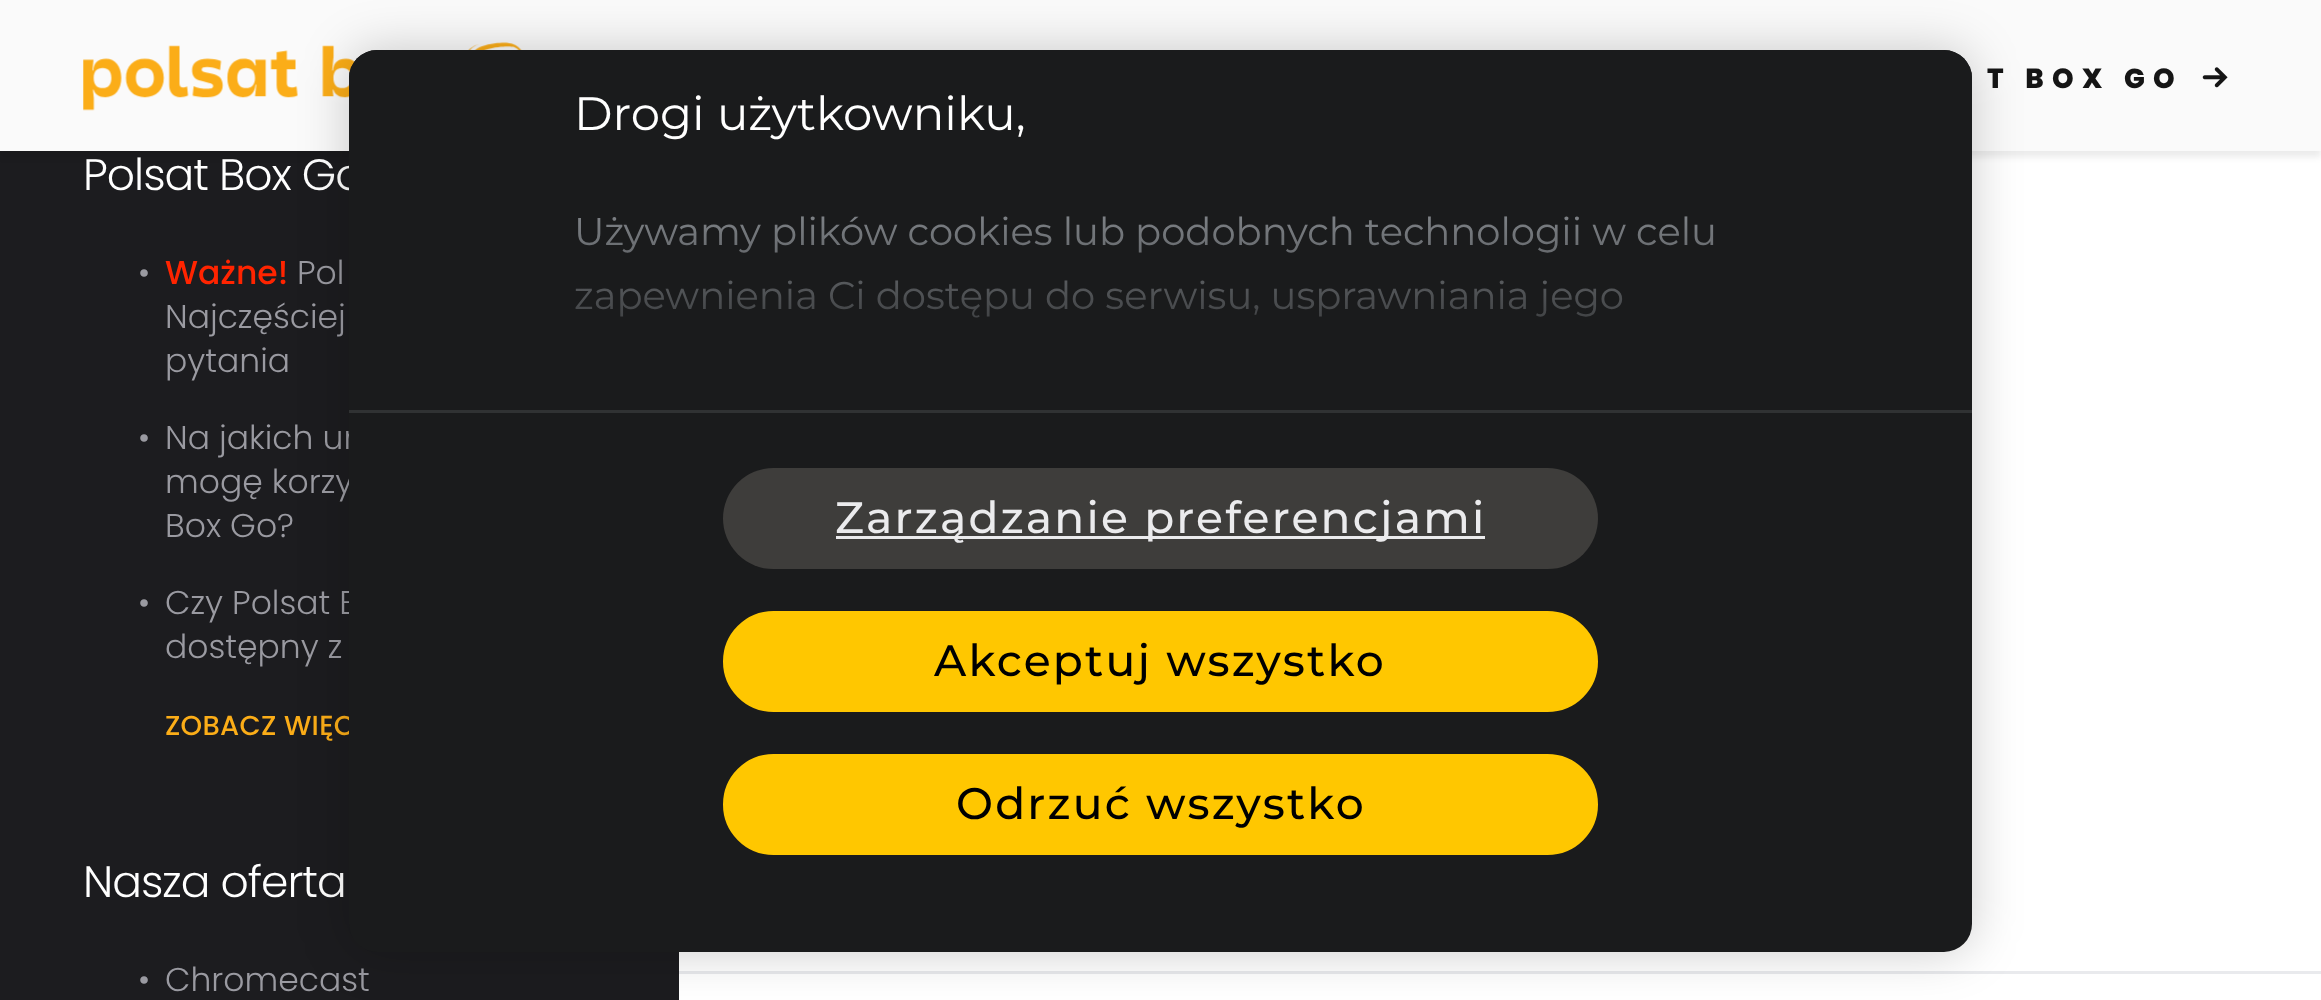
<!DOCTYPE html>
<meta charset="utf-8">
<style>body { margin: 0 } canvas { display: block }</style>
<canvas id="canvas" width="2321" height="1000"></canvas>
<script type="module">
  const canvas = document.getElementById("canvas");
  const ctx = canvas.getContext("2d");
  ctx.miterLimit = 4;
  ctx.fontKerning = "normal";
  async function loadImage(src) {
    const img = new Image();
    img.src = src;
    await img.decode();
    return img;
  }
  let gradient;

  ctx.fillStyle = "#ffffff";
  ctx.fillRect(0, 0, 2321, 1000);
  ctx.fillStyle = "#1c1c1f";
  ctx.fillRect(0, 151, 679, 849);
  ctx.fillStyle = "rgba(0, 0, 0, 0.08)";
  ctx.filter = "blur(3px)";
  ctx.beginPath();
  ctx.rect(0, 6, 2321, 151);
  ctx.fill();
  ctx.filter = "none";
  ctx.fillStyle = "#fafafa";
  ctx.fillRect(0, 0, 2321, 151);
  ctx.drawImage(await loadImage("img1.png"), 83, 42, 439, 69);
  ctx.letterSpacing = "8.25px";
  ctx.font = "800 27.5px Poppins";
  ctx.fillStyle = "#151515";
  ctx.fillText("T BOX GO", 1987, 88);
  ctx.drawImage(await loadImage("img2.png"), 2202, 67, 26, 21);
  ctx.letterSpacing = "-1px";
  ctx.font = "300 44px Poppins";
  ctx.fillStyle = "#ffffff";
  ctx.fillText("Polsat Box Go", 83, 190);
  ctx.letterSpacing = "0px";
  ctx.font = "300 33px Poppins";
  ctx.fillStyle = "#9a9aa1";
  ctx.fillText("•", 138, 284);
  ctx.font = "500 33px Poppins";
  ctx.fillStyle = "#ff2400";
  ctx.fillText("Ważne!", 165, 284);
  ctx.font = "300 33px Poppins";
  ctx.fillStyle = "#9a9aa1";
  ctx.fillText("Pol", 297, 284);
  ctx.fillText("Najczęściej", 165, 328);
  ctx.fillText("pytania", 165, 372);
  ctx.fillText("•", 138, 449);
  ctx.fillText("Na jakich ur", 165, 449);
  ctx.fillText("mogę korzy", 165, 493);
  ctx.fillText("Box Go?", 165, 537);
  ctx.fillText("•", 138, 614);
  ctx.fillText("Czy Polsat B", 165, 614);
  ctx.fillText("dostępny z", 165, 658);
  ctx.letterSpacing = "0.25px";
  ctx.font = "500 27.5px Poppins";
  ctx.fillStyle = "#fbad18";
  ctx.fillText("ZOBACZ WIĘC", 165, 735);
  ctx.letterSpacing = "-1px";
  ctx.font = "300 44px Poppins";
  ctx.fillStyle = "#ffffff";
  ctx.fillText("Nasza oferta", 83, 897);
  ctx.letterSpacing = "0px";
  ctx.font = "300 33px Poppins";
  ctx.fillStyle = "#9a9aa1";
  ctx.fillText("•", 138, 991);
  ctx.fillText("Chromecast", 165, 991);
  ctx.fillStyle = "#e9eaed";
  ctx.fillRect(679, 971, 1642, 3);
  ctx.fillStyle = "rgba(0, 0, 0, 0.2)";
  ctx.filter = "blur(25px)";
  ctx.beginPath();
  ctx.roundRect(349, 50, 1623, 902, 28);
  ctx.fill();
  ctx.filter = "none";
  ctx.fillStyle = "#1a1b1c";
  ctx.beginPath();
  ctx.roundRect(349, 50, 1623, 902, 28);
  ctx.fill();
  ctx.beginPath();
  ctx.roundRect(349, 50, 1623, 360, [28, 28, 0, 0]);
  ctx.fill();
  ctx.font = "46.75px Montserrat";
  ctx.fillStyle = "#ffffff";
  ctx.fillText("Drogi użytkowniku,", 574, 130);
  ctx.font = "38.5px Montserrat";
  ctx.fillStyle = "#a9aeb4";
  ctx.fillText("Używamy plików cookies lub podobnych technologii w celu", 574, 245);
  ctx.fillText("zapewnienia Ci dostępu do serwisu, usprawniania jego", 574, 309);
  gradient = ctx.createLinearGradient(1133, 140, 1133, 412);
  gradient.addColorStop(0, "rgba(26, 27, 28, 0)");
  gradient.addColorStop(0.9, "#1a1b1c");
  ctx.fillStyle = gradient;
  ctx.fillRect(575, 216, 1138, 102);
  ctx.fillStyle = "#303233";
  ctx.fillRect(349, 410, 1623, 3);
  ctx.fillStyle = "#3e3d3b";
  ctx.beginPath();
  ctx.roundRect(723, 468, 875, 101, 50.5);
  ctx.fill();
  ctx.fillStyle = "#ebebed";
  ctx.fillRect(836, 536, 649, 3);
  ctx.letterSpacing = "2.2px";
  ctx.font = "500 44px Montserrat";
  ctx.fillText("Zarządzanie preferencjami", 835, 533);
  ctx.fillStyle = "#ffc700";
  ctx.beginPath();
  ctx.roundRect(724.5, 612.5, 872, 98, 49);
  ctx.fill();
  ctx.strokeStyle = "#ffc700";
  ctx.lineWidth = 3;
  ctx.stroke();
  ctx.fillStyle = "#000000";
  ctx.fillText("Akceptuj wszystko", 934, 676);
  ctx.fillStyle = "#ffc700";
  ctx.beginPath();
  ctx.roundRect(724.5, 755.5, 872, 98, 49);
  ctx.fill();
  ctx.stroke();
  ctx.fillStyle = "#000000";
  ctx.fillText("Odrzuć wszystko", 956, 819);
</script>
